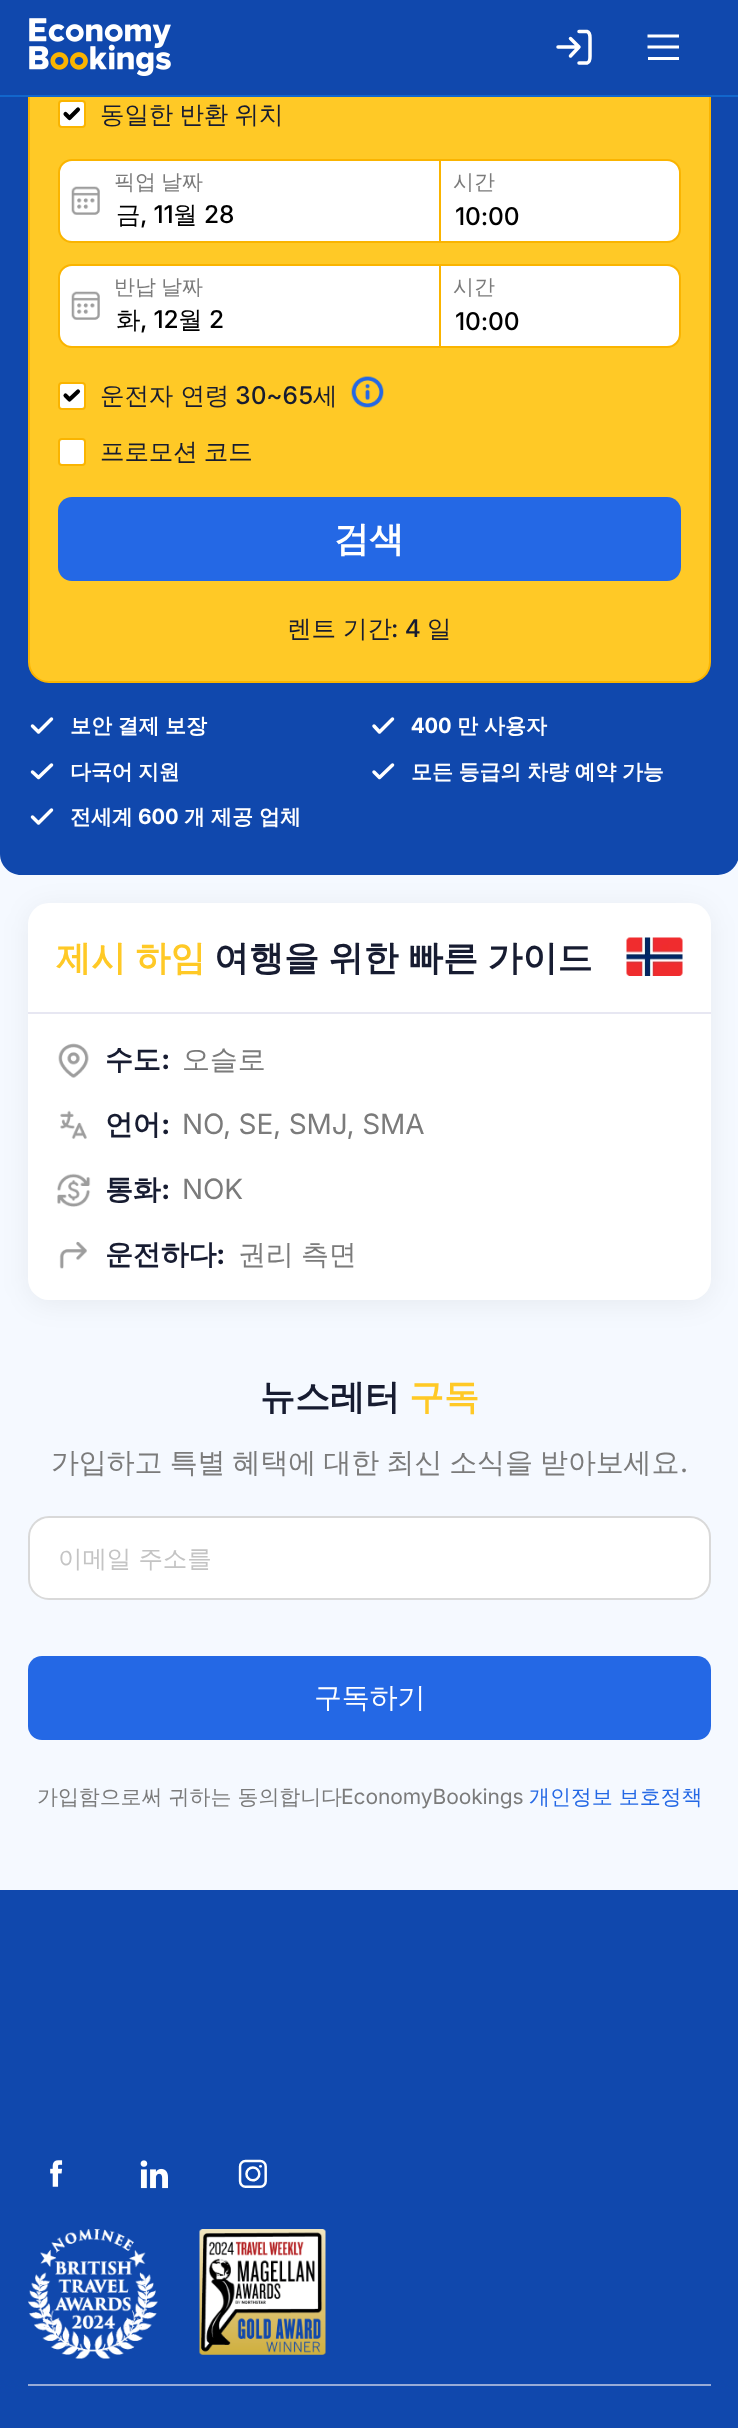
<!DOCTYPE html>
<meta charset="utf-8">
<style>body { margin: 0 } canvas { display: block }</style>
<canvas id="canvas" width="738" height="2428"></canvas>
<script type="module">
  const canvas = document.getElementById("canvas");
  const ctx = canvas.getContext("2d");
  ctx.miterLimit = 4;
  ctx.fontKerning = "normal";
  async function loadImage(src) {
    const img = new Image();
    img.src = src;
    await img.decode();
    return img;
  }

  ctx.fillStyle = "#f5f9ff";
  ctx.fillRect(0, 0, 738, 2428);
  ctx.fillStyle = "rgba(0, 0, 0, 0.06)";
  ctx.filter = "blur(14px)";
  ctx.beginPath();
  ctx.roundRect(28, 907, 683, 397, 21);
  ctx.fill();
  ctx.filter = "none";
  ctx.fillStyle = "#1048ad";
  ctx.beginPath();
  ctx.moveTo(0, -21);
  ctx.lineTo(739, -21);
  ctx.lineTo(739, 854);
  ctx.bezierCurveTo(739, 865.5, 729.5, 875, 718, 875);
  ctx.lineTo(21, 875);
  ctx.bezierCurveTo(9.5, 875, 0, 865.5, 0, 854);
  ctx.closePath();
  ctx.fill();
  ctx.fillStyle = "#ffc926";
  ctx.beginPath();
  ctx.roundRect(29, -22, 681, 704, 20);
  ctx.fill();
  ctx.strokeStyle = "#fab400";
  ctx.lineWidth = 2;
  ctx.stroke();
  ctx.fillStyle = "#1048ad";
  ctx.fillRect(28, 0, 683, 95);
  ctx.fillStyle = "#1266cc";
  ctx.fillRect(0, 95, 738, 2);
  ctx.drawImage(await loadImage("img1.png"), 29, 18, 142, 58);
  ctx.beginPath();
  ctx.moveTo(579, 31.5);
  ctx.lineTo(587, 31.5);
  ctx.bezierCurveTo(590.5, 32.5, 590, 36.5, 590, 39);
  ctx.lineTo(590, 55.5);
  ctx.bezierCurveTo(590, 58, 590.5, 62, 587, 63);
  ctx.lineTo(579, 63);
  ctx.moveTo(570.5, 56);
  ctx.lineTo(579, 47);
  ctx.lineTo(570.5, 38.5);
  ctx.moveTo(579, 47);
  ctx.lineTo(558, 47);
  ctx.strokeStyle = "#ffffff";
  ctx.lineWidth = 3.5;
  ctx.lineCap = "round";
  ctx.lineJoin = "round";
  ctx.stroke();
  ctx.beginPath();
  ctx.moveTo(647.5, 36);
  ctx.lineTo(679, 36);
  ctx.moveTo(647.5, 47);
  ctx.lineTo(679, 47);
  ctx.lineWidth = 3.2;
  ctx.lineCap = "butt";
  ctx.lineJoin = "miter";
  ctx.stroke();
  ctx.fillStyle = "#ffffff";
  ctx.fillRect(648, 57, 31, 3);
  ctx.beginPath();
  ctx.roundRect(59, 101, 26, 26, 3);
  ctx.fill();
  ctx.strokeStyle = "#fab400";
  ctx.lineWidth = 2;
  ctx.stroke();
  ctx.beginPath();
  ctx.moveTo(65.5, 114);
  ctx.lineTo(69.5, 118);
  ctx.lineTo(78, 109.5);
  ctx.strokeStyle = "#000000";
  ctx.lineWidth = 4.1;
  ctx.lineCap = "round";
  ctx.lineJoin = "round";
  ctx.stroke();
  ctx.letterSpacing = "-0.1px";
  ctx.wordSpacing = "-1px";
  ctx.font = "500 24.5px WenQuanYi Zen Hei";
  ctx.fillStyle = "#171c31";
  ctx.fillText("동일한 반환 위치", 100, 123);
  ctx.fillStyle = "#ffffff";
  ctx.beginPath();
  ctx.roundRect(59, 160, 381, 82, [13, 0, 0, 13]);
  ctx.fill();
  ctx.strokeStyle = "#fab400";
  ctx.lineWidth = 2;
  ctx.lineJoin = "miter";
  ctx.stroke();
  ctx.font = "500 21px WenQuanYi Zen Hei";
  ctx.fillStyle = "#7b7b7b";
  ctx.fillText("픽업 날짜", 114, 189);
  ctx.drawImage(await loadImage("img2.png"), 71, 186, 29, 29);
  ctx.wordSpacing = "0px";
  ctx.font = "500 24.5px WenQuanYi Zen Hei";
  ctx.fillStyle = "#000000";
  ctx.fillText("금", 116, 223);
  ctx.font = "500 24.5px Inter";
  ctx.fillText(", 11", 140, 223);
  ctx.font = "500 24.5px WenQuanYi Zen Hei";
  ctx.fillText("월", 173, 223);
  ctx.font = "500 24.5px Inter";
  ctx.fillText("28", 204, 223);
  ctx.fillStyle = "#ffffff";
  ctx.beginPath();
  ctx.roundRect(440, 160, 240, 82, [0, 13, 13, 0]);
  ctx.fill();
  ctx.stroke();
  ctx.font = "500 21px WenQuanYi Zen Hei";
  ctx.fillStyle = "#7b7b7b";
  ctx.fillText("시간", 453, 189);
  ctx.font = "500 24.5px Inter";
  ctx.fillStyle = "#000000";
  ctx.fillText("10:00", 455, 225);
  ctx.fillStyle = "#ffffff";
  ctx.beginPath();
  ctx.roundRect(59, 265, 381, 82, [13, 0, 0, 13]);
  ctx.fill();
  ctx.stroke();
  ctx.wordSpacing = "-1px";
  ctx.font = "500 21px WenQuanYi Zen Hei";
  ctx.fillStyle = "#7b7b7b";
  ctx.fillText("반납 날짜", 114, 294);
  ctx.drawImage(await loadImage("img2.png"), 71, 291, 29, 29);
  ctx.wordSpacing = "0px";
  ctx.font = "500 24.5px WenQuanYi Zen Hei";
  ctx.fillStyle = "#000000";
  ctx.fillText("화", 116, 328);
  ctx.font = "500 24.5px Inter";
  ctx.fillText(", 12", 140, 328);
  ctx.font = "500 24.5px WenQuanYi Zen Hei";
  ctx.fillText("월", 178, 328);
  ctx.font = "500 24.5px Inter";
  ctx.fillText("2", 209, 328);
  ctx.fillStyle = "#ffffff";
  ctx.beginPath();
  ctx.roundRect(440, 265, 240, 82, [0, 13, 13, 0]);
  ctx.fill();
  ctx.stroke();
  ctx.font = "500 21px WenQuanYi Zen Hei";
  ctx.fillStyle = "#7b7b7b";
  ctx.fillText("시간", 453, 294);
  ctx.font = "500 24.5px Inter";
  ctx.fillStyle = "#000000";
  ctx.fillText("10:00", 455, 330);
  ctx.fillStyle = "#ffffff";
  ctx.beginPath();
  ctx.roundRect(59, 383, 26, 26, 3);
  ctx.fill();
  ctx.stroke();
  ctx.beginPath();
  ctx.moveTo(65.5, 395.5);
  ctx.lineTo(69.5, 399.5);
  ctx.lineTo(78, 391.5);
  ctx.strokeStyle = "#000000";
  ctx.lineWidth = 4.1;
  ctx.lineJoin = "round";
  ctx.stroke();
  ctx.font = "500 24.5px WenQuanYi Zen Hei";
  ctx.fillStyle = "#171c31";
  ctx.fillText("운전자 연령", 100, 404);
  ctx.font = "500 24.5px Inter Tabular";
  ctx.fillText("30~65", 235, 404);
  ctx.font = "500 24.5px WenQuanYi Zen Hei";
  ctx.fillText("세", 313, 404);
  ctx.drawImage(await loadImage("img3.png"), 351, 376, 33, 32);
  ctx.fillStyle = "#ffffff";
  ctx.beginPath();
  ctx.roundRect(59, 439, 26, 26, 3);
  ctx.fill();
  ctx.strokeStyle = "#fab400";
  ctx.lineWidth = 2;
  ctx.lineJoin = "miter";
  ctx.stroke();
  ctx.wordSpacing = "-1px";
  ctx.fillStyle = "#171c31";
  ctx.fillText("프로모션 코드", 100, 460);
  ctx.fillStyle = "#2468e5";
  ctx.beginPath();
  ctx.roundRect(58, 497, 623, 84, 14);
  ctx.fill();
  ctx.letterSpacing = "0px";
  ctx.wordSpacing = "0px";
  ctx.font = "bold 35px WenQuanYi Zen Hei";
  ctx.fillStyle = "#ffffff";
  ctx.fillText("검색", 334, 551);
  ctx.letterSpacing = "-0.1px";
  ctx.font = "500 24.5px WenQuanYi Zen Hei";
  ctx.fillStyle = "#171c31";
  ctx.fillText("렌트", 287, 637);
  ctx.fillText("기간", 343, 637);
  ctx.font = "500 24.5px Inter";
  ctx.fillText(": 4", 391, 637);
  ctx.font = "500 24.5px WenQuanYi Zen Hei";
  ctx.fillText("일", 427, 637);
  ctx.beginPath();
  ctx.moveTo(51.5, 719);
  ctx.lineTo(38.5, 732);
  ctx.lineTo(32.5, 726);
  ctx.strokeStyle = "#ffffff";
  ctx.lineWidth = 3.5;
  ctx.lineJoin = "round";
  ctx.stroke();
  ctx.wordSpacing = "-0.5px";
  ctx.font = "bold 21px WenQuanYi Zen Hei";
  ctx.fillStyle = "#ffffff";
  ctx.fillText("보안 결제 보장", 70, 733);
  ctx.beginPath();
  ctx.moveTo(392.5, 719);
  ctx.lineTo(379.5, 732);
  ctx.lineTo(374, 726);
  ctx.stroke();
  ctx.wordSpacing = "0px";
  ctx.font = "bold 21px Inter Tabular";
  ctx.fillText("400", 411, 733);
  ctx.font = "bold 21px WenQuanYi Zen Hei";
  ctx.fillText("만 사용자", 457, 733);
  ctx.beginPath();
  ctx.moveTo(51.5, 765);
  ctx.lineTo(38.5, 777.5);
  ctx.lineTo(32.5, 772);
  ctx.stroke();
  ctx.wordSpacing = "-1px";
  ctx.fillText("다국어 지원", 70, 779);
  ctx.beginPath();
  ctx.moveTo(392.5, 765);
  ctx.lineTo(379.5, 777.5);
  ctx.lineTo(374, 772);
  ctx.stroke();
  ctx.wordSpacing = "-0.5px";
  ctx.fillText("모든 등급의 차량 예약 가능", 411, 779);
  ctx.beginPath();
  ctx.moveTo(51.5, 810);
  ctx.lineTo(38.5, 823);
  ctx.lineTo(32.5, 817);
  ctx.stroke();
  ctx.wordSpacing = "0px";
  ctx.fillText("전세계", 70, 824);
  ctx.font = "bold 21px Inter Tabular";
  ctx.fillText("600", 138, 824);
  ctx.font = "bold 21px WenQuanYi Zen Hei";
  ctx.fillText("개 제공 업체", 184, 824);
  ctx.beginPath();
  ctx.roundRect(28, 903, 683, 397, 21);
  ctx.fill();
  ctx.letterSpacing = "0px";
  ctx.wordSpacing = "-1px";
  ctx.font = "bold 35px WenQuanYi Zen Hei";
  ctx.fillStyle = "#ffc926";
  ctx.fillText("제시 하임", 56, 970);
  ctx.fillStyle = "#171c31";
  ctx.fillText("여행을 위한 빠른 가이드", 214, 970);
  ctx.drawImage(await loadImage("img4.png"), 626, 937, 57, 39);
  ctx.fillStyle = "#e7e7f2";
  ctx.fillRect(28, 1012, 683, 2);
  ctx.drawImage(await loadImage("img5.png"), 58, 1043, 31, 35);
  ctx.letterSpacing = "-0.15px";
  ctx.wordSpacing = "0px";
  ctx.font = "bold 28px WenQuanYi Zen Hei";
  ctx.fillStyle = "#171c31";
  ctx.fillText("수도", 105, 1069);
  ctx.font = "bold 28px Inter";
  ctx.fillText(":", 161, 1069);
  ctx.font = "500 28px WenQuanYi Zen Hei";
  ctx.fillStyle = "#7b7b7b";
  ctx.fillText("오슬로", 182, 1069);
  ctx.drawImage(await loadImage("img6.png"), 60, 1110, 27, 29);
  ctx.font = "bold 28px WenQuanYi Zen Hei";
  ctx.fillStyle = "#171c31";
  ctx.fillText("언어", 105, 1134);
  ctx.font = "bold 28px Inter";
  ctx.fillText(":", 161, 1134);
  ctx.font = "28px Inter";
  ctx.fillStyle = "#7b7b7b";
  ctx.fillText("NO, SE, SMJ, SMA", 182, 1134);
  ctx.drawImage(await loadImage("img7.png"), 57, 1173, 34, 34);
  ctx.font = "bold 28px WenQuanYi Zen Hei";
  ctx.fillStyle = "#171c31";
  ctx.fillText("통화", 105, 1199);
  ctx.font = "bold 28px Inter";
  ctx.fillText(":", 161, 1199);
  ctx.font = "28px Inter";
  ctx.fillStyle = "#7b7b7b";
  ctx.fillText("NOK", 182, 1199);
  ctx.drawImage(await loadImage("img8.png"), 59, 1241, 28, 28);
  ctx.font = "bold 28px WenQuanYi Zen Hei";
  ctx.fillStyle = "#171c31";
  ctx.fillText("운전하다", 105, 1264);
  ctx.font = "bold 28px Inter";
  ctx.fillText(":", 216, 1264);
  ctx.wordSpacing = "-1px";
  ctx.font = "500 28px WenQuanYi Zen Hei";
  ctx.fillStyle = "#7b7b7b";
  ctx.fillText("권리 측면", 238, 1264);
  ctx.letterSpacing = "0px";
  ctx.wordSpacing = "0px";
  ctx.font = "bold 35px WenQuanYi Zen Hei";
  ctx.fillStyle = "#171c31";
  ctx.fillText("뉴스레터", 260, 1409);
  ctx.fillStyle = "#ffc926";
  ctx.fillText("구독", 409, 1409);
  ctx.letterSpacing = "-0.15px";
  ctx.wordSpacing = "-1px";
  ctx.font = "500 28px WenQuanYi Zen Hei";
  ctx.fillStyle = "#7b7b7b";
  ctx.fillText("가입하고 특별 혜택에 대한 최신 소식을 받아보세요", 51, 1472);
  ctx.wordSpacing = "0px";
  ctx.font = "28px Inter";
  ctx.fillText(".", 680, 1472);
  ctx.fillStyle = "#ffffff";
  ctx.beginPath();
  ctx.roundRect(29, 1517, 681, 82, 20);
  ctx.fill();
  ctx.strokeStyle = "#d9d9d9";
  ctx.lineWidth = 2;
  ctx.lineJoin = "miter";
  ctx.stroke();
  ctx.letterSpacing = "-0.1px";
  ctx.font = "500 24.5px WenQuanYi Zen Hei";
  ctx.fillStyle = "#c4c4c4";
  ctx.fillText("이메일 주소를", 58, 1567);
  ctx.fillStyle = "#2468e5";
  ctx.beginPath();
  ctx.roundRect(28, 1656, 683, 84, 14);
  ctx.fill();
  ctx.letterSpacing = "-0.15px";
  ctx.font = "500 28px WenQuanYi Zen Hei";
  ctx.fillStyle = "#ffffff";
  ctx.fillText("구독하기", 314, 1707);
  ctx.letterSpacing = "-0.1px";
  ctx.font = "500 21px WenQuanYi Zen Hei";
  ctx.fillStyle = "#7b7b7b";
  ctx.fillText("가입함으로써 귀하는 동의합니다", 37, 1804);
  ctx.font = "21px Inter";
  ctx.fillText("EconomyBookings", 341, 1804);
  ctx.font = "500 21px WenQuanYi Zen Hei";
  ctx.fillStyle = "#2468e5";
  ctx.fillText("개인정보 보호정책", 529, 1804);
  ctx.fillStyle = "#1048ad";
  ctx.fillRect(0, 1890, 738, 538);
  ctx.drawImage(await loadImage("img9.png"), 50, 2160, 13, 27);
  ctx.drawImage(await loadImage("img10.png"), 140, 2160, 28, 29);
  ctx.drawImage(await loadImage("img11.png"), 238, 2159, 29, 29);
  ctx.drawImage(await loadImage("img12.png"), 28, 2229, 130, 130);
  ctx.drawImage(await loadImage("img13.png"), 199, 2229, 127, 126);
  ctx.fillStyle = "#97abd7";
  ctx.fillRect(28, 2384, 683, 2);
</script>
